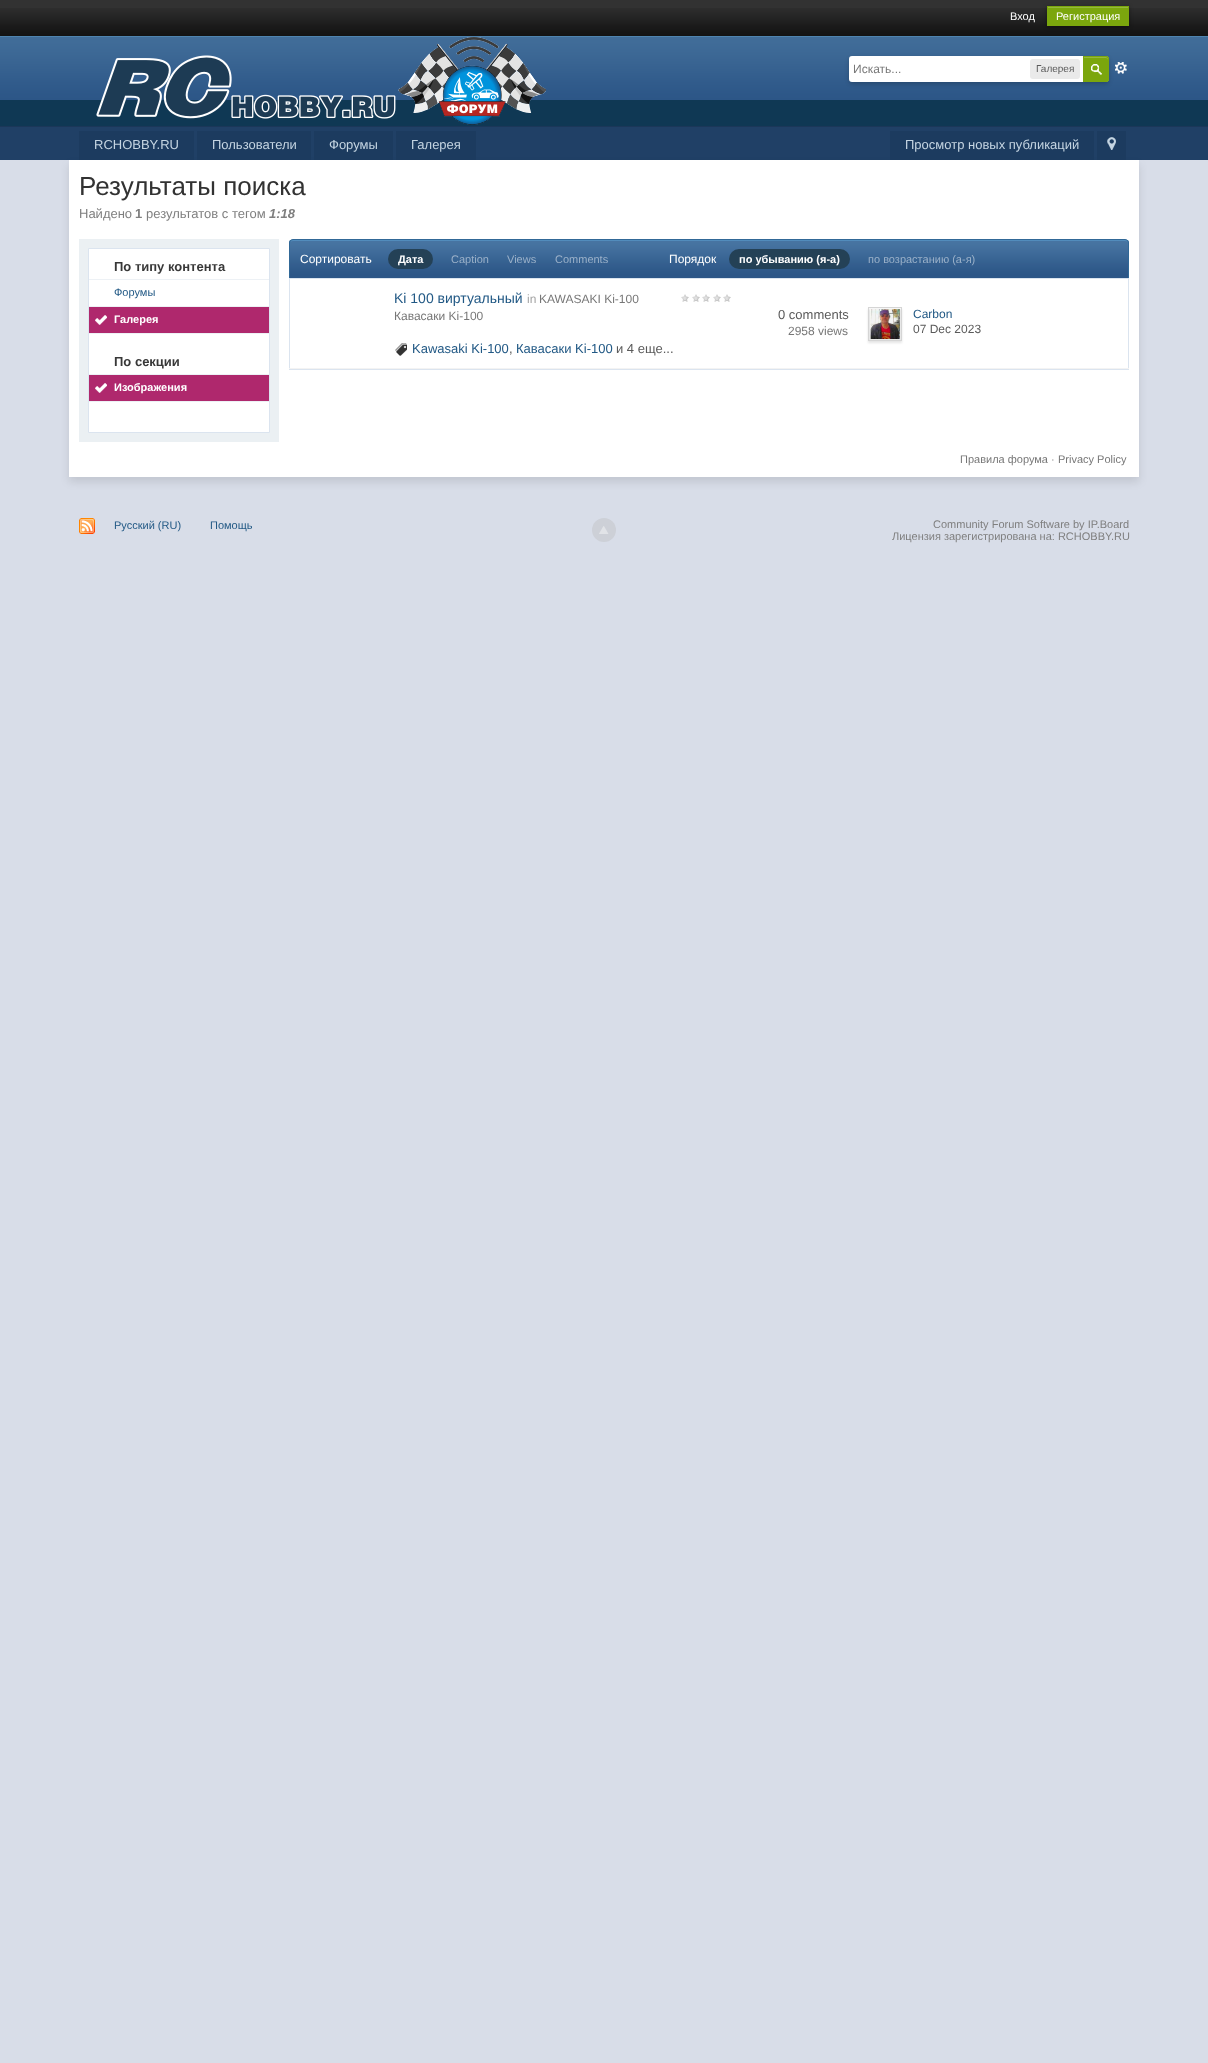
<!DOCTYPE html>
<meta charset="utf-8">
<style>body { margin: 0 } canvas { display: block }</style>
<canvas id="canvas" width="1208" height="2063"></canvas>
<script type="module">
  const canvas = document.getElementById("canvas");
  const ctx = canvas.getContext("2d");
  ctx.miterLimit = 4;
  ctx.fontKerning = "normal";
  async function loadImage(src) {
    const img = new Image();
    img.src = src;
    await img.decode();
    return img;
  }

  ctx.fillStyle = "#d8dde8";
  ctx.fillRect(0, 0, 1208, 2063);
  ctx.fillStyle = "#323232";
  ctx.fillRect(0, 0, 1208, 8);
  ctx.drawImage(await loadImage("img1.png"), 0, 8, 1208, 28);
  ctx.font = "11px Liberation Sans";
  ctx.fillStyle = "#ffffff";
  ctx.fillText("Вход", 1010, 20);
  ctx.fillStyle = "rgba(0, 0, 0, 0.4)";
  ctx.filter = "blur(2px)";
  ctx.beginPath();
  ctx.rect(1047, 7, 82, 20);
  ctx.fill();
  ctx.filter = "none";
  ctx.fillStyle = "#7ba60d";
  ctx.fillRect(1047, 6, 82, 20);
  ctx.fillStyle = "#95b83d";
  ctx.fillRect(1048, 7, 80, 1);
  ctx.fillStyle = "#ffffff";
  ctx.fillText("Регистрация", 1056, 20);
  ctx.fillStyle = "#0f3854";
  ctx.fillRect(0, 100, 1208, 26);
  ctx.drawImage(await loadImage("img2.png"), 0, 36, 1208, 64);
  ctx.fillStyle = "#1b3759";
  ctx.fillRect(0, 126, 1208, 1);
  ctx.drawImage(await loadImage("img3.png"), 96, 37, 450, 88);
  ctx.drawImage(await loadImage("img5.png"), 1115, 62, 12, 12);
  ctx.fillStyle = "rgba(0, 0, 0, 0.2)";
  ctx.filter = "blur(2px)";
  ctx.beginPath();
  ctx.roundRect(849, 58, 260, 26, 4);
  ctx.fill();
  ctx.filter = "none";
  ctx.fillStyle = "#ffffff";
  ctx.beginPath();
  ctx.roundRect(849, 56, 260, 26, [3, 4, 4, 3]);
  ctx.fill();
  ctx.font = "12px Liberation Sans";
  ctx.fillStyle = "#777777";
  ctx.fillText("Искать...", 853, 73);
  ctx.fillStyle = "#eaeaea";
  ctx.beginPath();
  ctx.roundRect(1030, 59, 50, 20, 3);
  ctx.fill();
  ctx.font = "10px Liberation Sans";
  ctx.fillStyle = "#5a5a5a";
  ctx.fillText("Галерея", 1036, 72);
  ctx.fillStyle = "#7ba60d";
  ctx.beginPath();
  ctx.roundRect(1083, 56, 26, 26, [0, 3, 3, 0]);
  ctx.fill();
  ctx.drawImage(await loadImage("img4.png"), 1091, 64, 11, 11);
  ctx.fillStyle = "#95b83d";
  ctx.beginPath();
  ctx.moveTo(1084, 58);
  ctx.lineTo(1106, 58);
  ctx.bezierCurveTo(1107, 58, 1108, 59, 1108, 60);
  ctx.lineTo(1108, 59);
  ctx.bezierCurveTo(1108, 58, 1107, 57, 1106, 57);
  ctx.lineTo(1084, 57);
  ctx.closePath();
  ctx.fill();
  ctx.beginPath();
  ctx.roundRect(1083.5, 56.5, 25, 25, [0, 2.5, 2.5, 0]);
  ctx.strokeStyle = "#7ba60d";
  ctx.stroke();
  ctx.fillStyle = "#204066";
  ctx.fillRect(0, 127, 1208, 33);
  ctx.fillStyle = "rgba(0, 0, 0, 0.1)";
  ctx.filter = "blur(4.5px)";
  ctx.beginPath();
  ctx.rect(69, 165, 1070, 317);
  ctx.fill();
  ctx.filter = "none";
  ctx.fillStyle = "#1c3b5f";
  ctx.fillRect(79, 131, 115, 29);
  ctx.font = "13px Liberation Sans";
  ctx.fillStyle = "#c5d5e2";
  ctx.fillText("RCHOBBY.RU", 94, 149);
  ctx.fillStyle = "#1c3b5f";
  ctx.fillRect(197, 131, 114, 29);
  ctx.fillStyle = "#c5d5e2";
  ctx.fillText("Пользователи", 212, 149);
  ctx.fillStyle = "#1c3b5f";
  ctx.fillRect(314, 131, 79, 29);
  ctx.fillStyle = "#c5d5e2";
  ctx.fillText("Форумы", 329, 149);
  ctx.fillStyle = "#1c3b5f";
  ctx.fillRect(396, 131, 80, 29);
  ctx.fillStyle = "#c5d5e2";
  ctx.fillText("Галерея", 411, 149);
  ctx.fillStyle = "#1c3b5f";
  ctx.fillRect(890, 131, 204, 29);
  ctx.fillStyle = "#c5d5e2";
  ctx.fillText("Просмотр новых публикаций", 905, 149);
  ctx.fillStyle = "#1c3b5f";
  ctx.fillRect(1097, 131, 29, 29);
  ctx.drawImage(await loadImage("img6.png"), 1107, 137, 9, 13);
  ctx.fillStyle = "#ffffff";
  ctx.fillRect(69, 160, 1070, 317);
  ctx.font = "26px Liberation Sans";
  ctx.fillStyle = "#323232";
  ctx.fillText("Результаты поиска", 79, 195);
  ctx.font = "13px Liberation Sans";
  ctx.fillStyle = "#7f7f7f";
  ctx.fillText("Найдено", 79, 218);
  ctx.font = "bold 13px Liberation Sans";
  ctx.fillText("1", 135, 218);
  ctx.font = "13px Liberation Sans";
  ctx.fillText("результатов с тегом", 146, 218);
  ctx.font = "italic bold 13px Liberation Sans";
  ctx.fillText("1:18", 269, 218);
  ctx.fillStyle = "#ebf0f3";
  ctx.fillRect(79, 239, 200, 203);
  ctx.fillStyle = "#ffffff";
  ctx.beginPath();
  ctx.rect(88.5, 248.5, 181, 184);
  ctx.fill();
  ctx.strokeStyle = "#dbe4ef";
  ctx.stroke();
  ctx.font = "bold 13px Liberation Sans";
  ctx.fillStyle = "#383838";
  ctx.fillText("По типу контента", 114, 271);
  ctx.fillStyle = "#edf1f5";
  ctx.fillRect(89, 279, 180, 1);
  ctx.fillRect(89, 306, 180, 1);
  ctx.font = "11px Liberation Sans";
  ctx.fillStyle = "#225985";
  ctx.fillText("Форумы", 114, 296);
  ctx.fillStyle = "#edf1f5";
  ctx.fillRect(89, 333, 180, 1);
  ctx.fillStyle = "#af286d";
  ctx.fillRect(89, 307, 180, 26);
  ctx.drawImage(await loadImage("img7.png"), 95, 315, 12, 10);
  ctx.font = "bold 11px Liberation Sans";
  ctx.fillStyle = "#ffffff";
  ctx.fillText("Галерея", 114, 323);
  ctx.font = "bold 13px Liberation Sans";
  ctx.fillStyle = "#383838";
  ctx.fillText("По секции", 114, 366);
  ctx.fillStyle = "#edf1f5";
  ctx.fillRect(89, 374, 180, 1);
  ctx.fillRect(89, 401, 180, 1);
  ctx.fillStyle = "#af286d";
  ctx.fillRect(89, 375, 180, 26);
  ctx.drawImage(await loadImage("img7.png"), 95, 383, 12, 10);
  ctx.font = "bold 11px Liberation Sans";
  ctx.fillStyle = "#ffffff";
  ctx.fillText("Изображения", 114, 391);
  ctx.fillStyle = "#2c5687";
  ctx.fillRect(290, 275, 838, 3);
  ctx.drawImage(await loadImage("img8.png"), 289, 240, 840, 35);
  ctx.fillStyle = "#528cbc";
  ctx.beginPath();
  ctx.moveTo(293, 241);
  ctx.lineTo(1125, 241);
  ctx.bezierCurveTo(1127, 241, 1128, 242, 1128, 244);
  ctx.bezierCurveTo(1128, 242, 1127, 240, 1125, 240);
  ctx.lineTo(293, 240);
  ctx.bezierCurveTo(291, 240, 290, 242, 290, 244);
  ctx.bezierCurveTo(290, 242, 291, 241, 293, 241);
  ctx.closePath();
  ctx.fill();
  ctx.fillStyle = "#316897";
  ctx.beginPath();
  ctx.moveTo(293, 239);
  ctx.lineTo(1125, 239);
  ctx.bezierCurveTo(1127, 239, 1129, 241, 1129, 243);
  ctx.lineTo(1129, 278);
  ctx.lineTo(289, 278);
  ctx.lineTo(289, 243);
  ctx.bezierCurveTo(289, 241, 291, 239, 293, 239);
  ctx.closePath();
  ctx.moveTo(293, 240);
  ctx.lineTo(1125, 240);
  ctx.bezierCurveTo(1127, 240, 1128, 241, 1128, 243);
  ctx.lineTo(1128, 278);
  ctx.lineTo(290, 278);
  ctx.lineTo(290, 243);
  ctx.bezierCurveTo(290, 241, 291, 240, 293, 240);
  ctx.closePath();
  ctx.fill("evenodd");
  ctx.font = "12px Liberation Sans";
  ctx.fillStyle = "#ffffff";
  ctx.fillText("Сортировать", 300, 263);
  ctx.fillStyle = "#244156";
  ctx.beginPath();
  ctx.roundRect(388, 249, 45, 20, 10);
  ctx.fill();
  ctx.font = "bold 11px Liberation Sans";
  ctx.fillStyle = "#ffffff";
  ctx.fillText("Дата", 398, 263);
  ctx.font = "11px Liberation Sans";
  ctx.fillStyle = "#9bb1c9";
  ctx.fillText("Caption", 451, 263);
  ctx.fillText("Views", 507, 263);
  ctx.fillText("Comments", 555, 263);
  ctx.font = "12px Liberation Sans";
  ctx.fillStyle = "#ffffff";
  ctx.fillText("Порядок", 669, 263);
  ctx.fillStyle = "#244156";
  ctx.beginPath();
  ctx.roundRect(729, 249, 121, 20, 10);
  ctx.fill();
  ctx.font = "bold 11px Liberation Sans";
  ctx.fillStyle = "#ffffff";
  ctx.fillText("по убыванию (я-а)", 739, 263);
  ctx.font = "11px Liberation Sans";
  ctx.fillStyle = "#9bb1c9";
  ctx.fillText("по возрастанию (а-я)", 868, 263);
  ctx.strokeRect(289.5, 278.5, 839, 91);
  ctx.font = "14px Liberation Sans";
  ctx.fillStyle = "#225985";
  ctx.fillText("Ki 100 виртуальный", 394, 303);
  ctx.font = "12px Liberation Sans";
  ctx.fillStyle = "#a4a4a4";
  ctx.fillText("in", 527, 303);
  ctx.fillStyle = "#777777";
  ctx.fillText("KAWASAKI Ki-100", 539, 303);
  ctx.drawImage(await loadImage("img9.png"), 681, 294, 8, 8);
  ctx.drawImage(await loadImage("img9.png"), 692, 294, 8, 8);
  ctx.drawImage(await loadImage("img9.png"), 702, 294, 8, 8);
  ctx.drawImage(await loadImage("img9.png"), 713, 294, 8, 8);
  ctx.drawImage(await loadImage("img9.png"), 723, 294, 8, 8);
  ctx.fillText("Кавасаки Ki-100", 394, 320);
  ctx.drawImage(await loadImage("img10.png"), 395, 343, 12, 13);
  ctx.font = "13px Liberation Sans";
  ctx.fillStyle = "#225985";
  ctx.fillText("Kawasaki Ki-100", 412, 353);
  ctx.fillStyle = "#5a5a5a";
  ctx.fillText(",", 509, 353);
  ctx.fillStyle = "#225985";
  ctx.fillText("Кавасаки Ki-100", 516, 353);
  ctx.fillStyle = "#5a5a5a";
  ctx.fillText("и 4 еще...", 616, 353);
  ctx.fillText("0 comments", 778, 319);
  ctx.font = "12px Liberation Sans";
  ctx.fillStyle = "#777777";
  ctx.fillText("2958 views", 788, 335);
  ctx.fillStyle = "#f3f3f3";
  ctx.fillRect(289, 368, 840, 1);
  ctx.fillStyle = "rgba(0, 0, 0, 0.1)";
  ctx.filter = "blur(1px)";
  ctx.beginPath();
  ctx.rect(868, 309, 34, 34);
  ctx.fill();
  ctx.filter = "none";
  ctx.strokeStyle = "#d5d5d5";
  ctx.strokeRect(868.5, 307.5, 33, 33);
  ctx.drawImage(await loadImage("img11.png"), 870, 309, 30, 30);
  ctx.fillStyle = "#225985";
  ctx.fillText("Carbon", 913, 318);
  ctx.fillStyle = "#5a5a5a";
  ctx.fillText("07 Dec 2023", 913, 333);
  ctx.font = "11px Liberation Sans";
  ctx.fillStyle = "#777777";
  ctx.fillText("Правила форума ·", 960, 463);
  ctx.fillText("Privacy Policy", 1058, 463);
  ctx.drawImage(await loadImage("img12.png"), 79, 518, 16, 16);
  ctx.fillStyle = "#225985";
  ctx.fillText("Русский (RU)", 114, 529);
  ctx.fillText("Помощь", 210, 529);
  ctx.fillStyle = "#cdd0d7";
  ctx.beginPath();
  ctx.arc(604, 530, 12, 0, Math.PI * 2);
  ctx.fill();
  ctx.drawImage(await loadImage("img13.png"), 599, 526, 10, 8);
  ctx.fillStyle = "#7f7f7f";
  ctx.fillText("Community Forum Software by IP.Board", 933, 528);
  ctx.fillText("Лицензия зарегистрирована на: RCHOBBY.RU", 892, 540);
</script>
